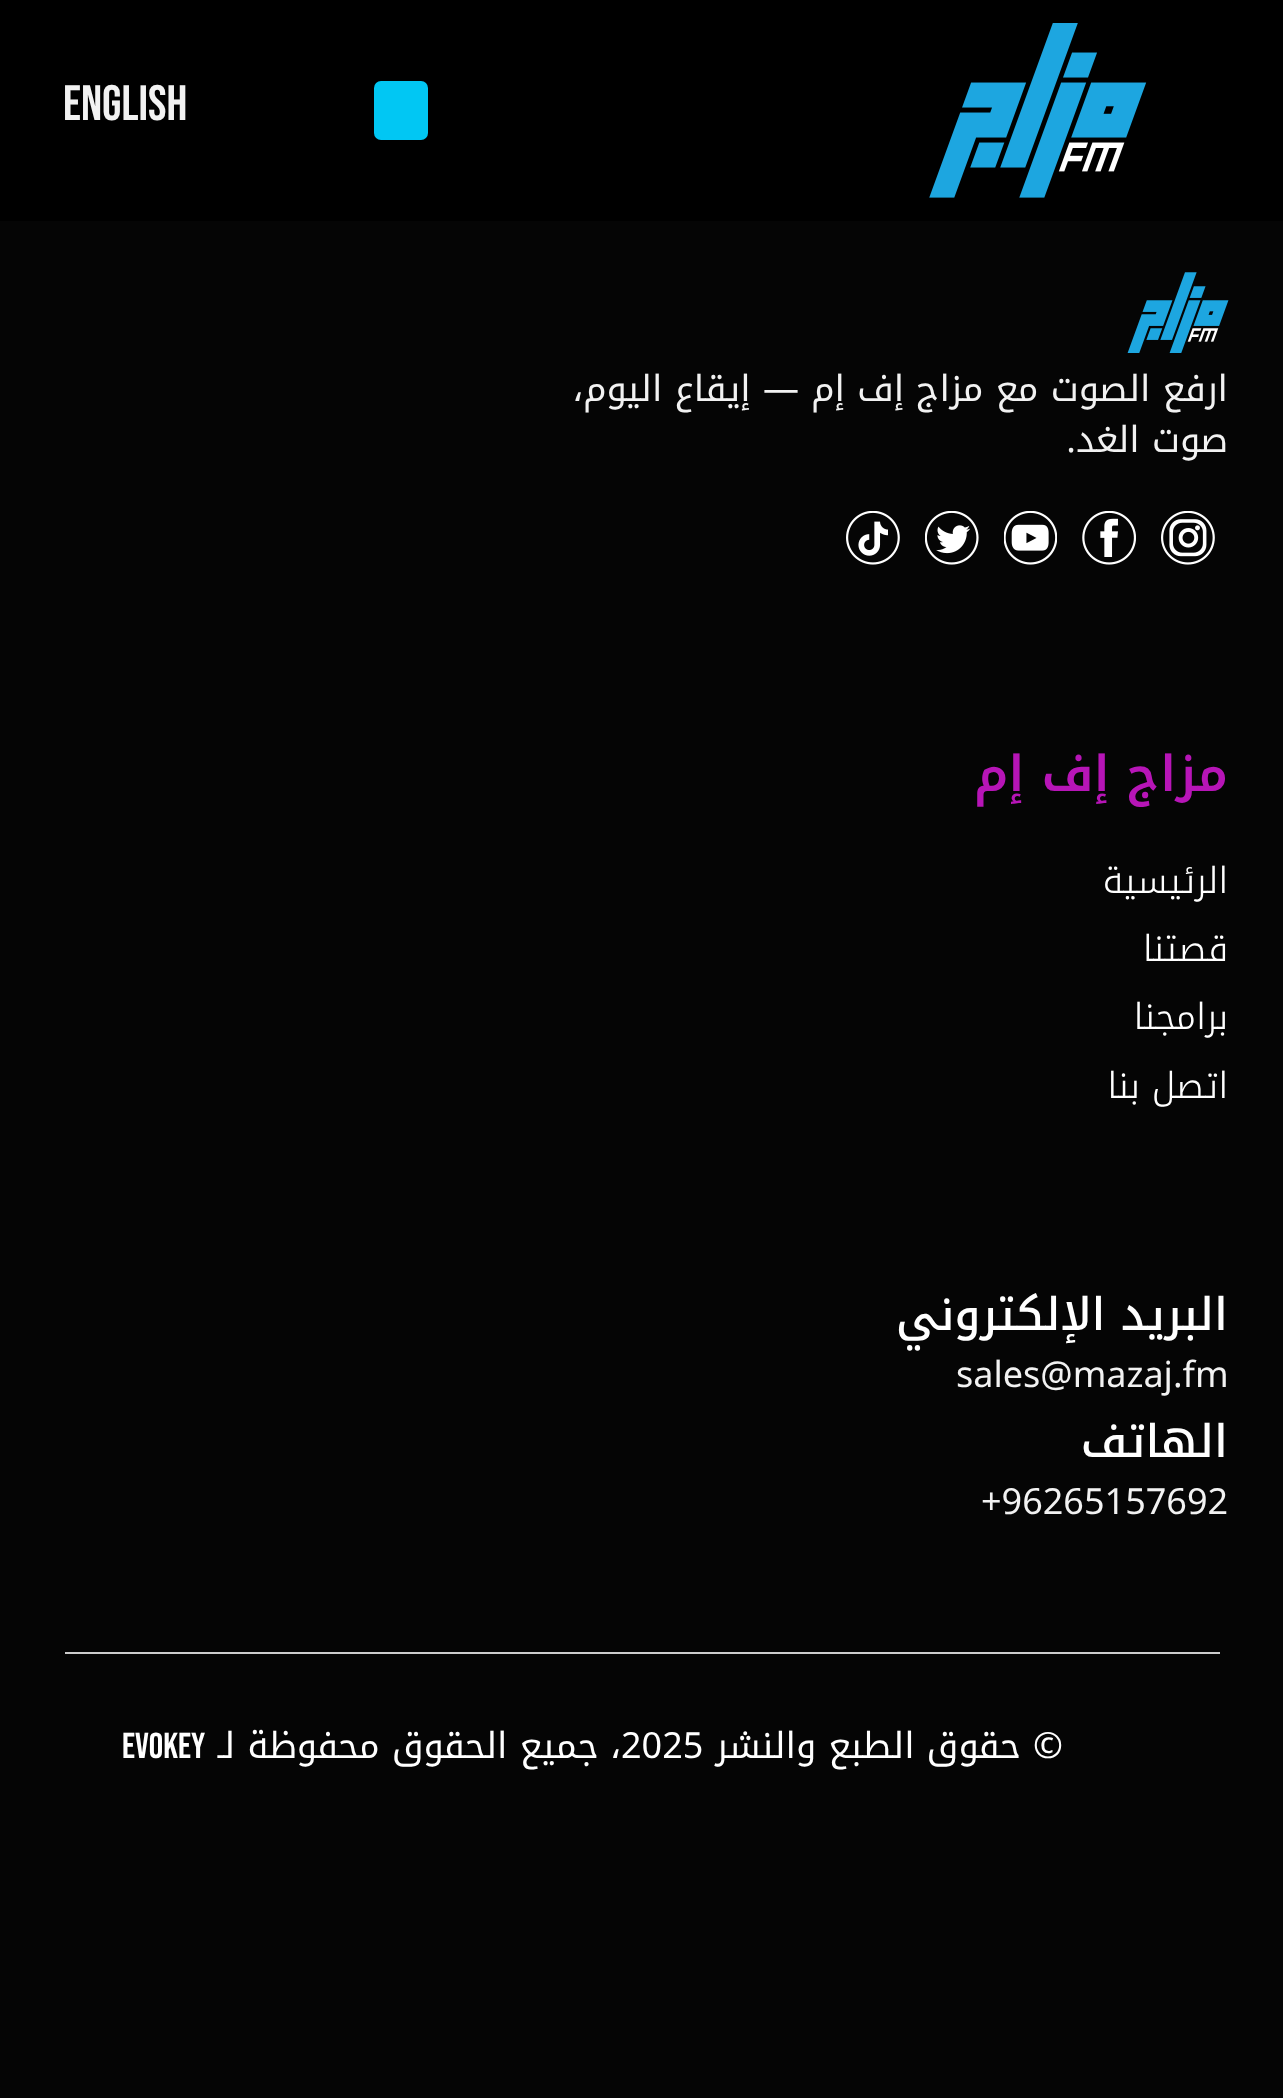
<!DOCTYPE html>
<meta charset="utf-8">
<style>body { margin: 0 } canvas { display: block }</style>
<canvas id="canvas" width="1283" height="2098"></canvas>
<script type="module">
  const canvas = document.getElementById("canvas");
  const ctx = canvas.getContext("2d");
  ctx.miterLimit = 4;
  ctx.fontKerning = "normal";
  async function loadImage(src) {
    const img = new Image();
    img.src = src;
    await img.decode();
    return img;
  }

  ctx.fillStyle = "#050505";
  ctx.fillRect(0, 0, 1283, 2098);
  ctx.fillStyle = "#000000";
  ctx.fillRect(0, 0, 1283, 221);
  ctx.drawImage(await loadImage("img1.png"), 929, 23, 218, 175);
  ctx.fillStyle = "#01c7f3";
  ctx.beginPath();
  ctx.roundRect(374, 81, 54, 59, 7);
  ctx.fill();
  ctx.font = "49.5px Bebas Neue";
  ctx.fillStyle = "#f2f2f2";
  ctx.fillText("English", 63, 120);
  ctx.drawImage(await loadImage("img2.png"), 1127, 272, 102, 81);
  ctx.direction = "rtl";
  ctx.font = "36px Noto Kufi Arabic";
  ctx.fillText("ارفع الصوت مع مزاج إف إم — إيقاع اليوم،", 1228, 401);
  ctx.fillText("صوت الغد.", 1228, 452);
  ctx.drawImage(await loadImage("img3.png"), 1161, 511, 54, 54);
  ctx.drawImage(await loadImage("img4.png"), 1082, 511, 54, 54);
  ctx.drawImage(await loadImage("img5.png"), 1004, 511, 53, 54);
  ctx.drawImage(await loadImage("img6.png"), 925, 511, 54, 54);
  ctx.drawImage(await loadImage("img7.png"), 846, 511, 54, 54);
  ctx.font = "600 49.5px Noto Kufi Arabic";
  ctx.fillStyle = "#b715b7";
  ctx.fillText("مزاج إف إم", 1228, 791);
  ctx.font = "300 36px Noto Kufi Arabic";
  ctx.fillStyle = "#ffffff";
  ctx.fillText("الرئيسية", 1228, 893);
  ctx.fillText("قصتنا", 1228, 961);
  ctx.fillText("برامجنا", 1228, 1029);
  ctx.fillText("اتصل بنا", 1228, 1098);
  ctx.font = "500 45px Noto Kufi Arabic";
  ctx.fillText("البريد الإلكتروني", 1228, 1330);
  ctx.direction = "ltr";
  ctx.font = "36px Noto Kufi Arabic";
  ctx.fillStyle = "#f2f2f2";
  ctx.fillText("sales@mazaj.fm", 956, 1387);
  ctx.direction = "rtl";
  ctx.font = "500 45px Noto Kufi Arabic";
  ctx.fillStyle = "#ffffff";
  ctx.fillText("الهاتف", 1228, 1457);
  ctx.direction = "ltr";
  ctx.font = "36px Noto Kufi Arabic";
  ctx.fillStyle = "#f2f2f2";
  ctx.fillText("+96265157692", 981, 1514);
  ctx.fillStyle = "#cccccc";
  ctx.fillRect(65, 1652, 1155, 2);
  ctx.direction = "rtl";
  ctx.fillStyle = "#ffffff";
  ctx.fillText("© حقوق الطبع والنشر", 1063, 1758);
  ctx.direction = "ltr";
  ctx.fillText("2025", 621, 1758);
  ctx.direction = "rtl";
  ctx.fillText("، جميع الحقوق محفوظة لـ", 621, 1758);
  ctx.direction = "ltr";
  ctx.font = "36px Bebas Neue";
  ctx.fillText("Evokey", 122, 1758);
</script>
